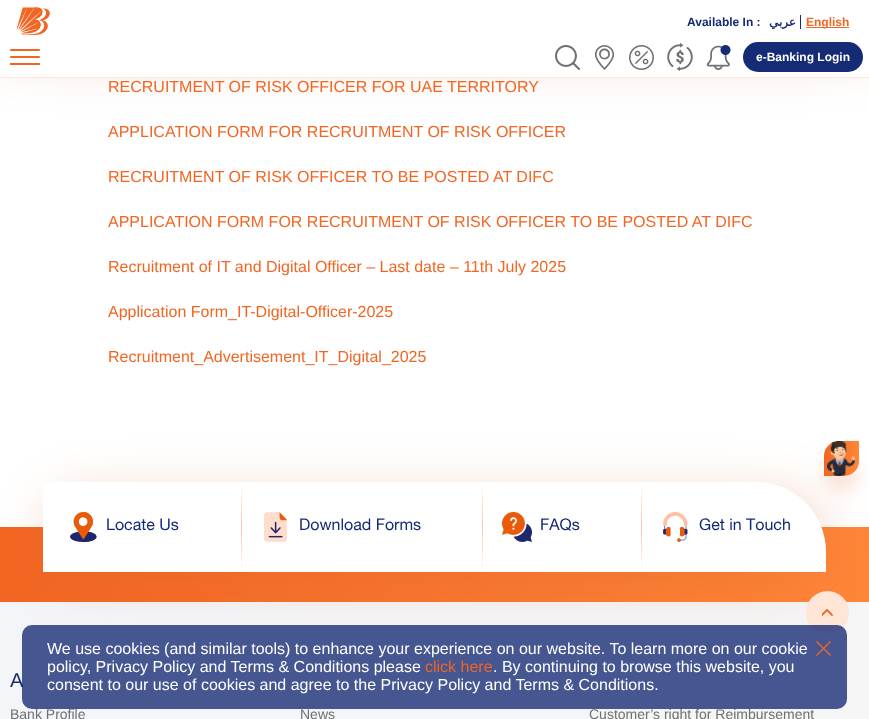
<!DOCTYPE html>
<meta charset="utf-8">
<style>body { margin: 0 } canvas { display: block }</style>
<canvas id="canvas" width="869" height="719"></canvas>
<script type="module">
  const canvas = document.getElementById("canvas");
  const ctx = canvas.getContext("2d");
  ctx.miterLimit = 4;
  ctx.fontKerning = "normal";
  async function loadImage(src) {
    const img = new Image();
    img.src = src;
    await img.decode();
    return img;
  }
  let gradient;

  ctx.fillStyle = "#ffffff";
  ctx.fillRect(0, 0, 869, 719);
  ctx.fillStyle = "rgba(216, 99, 43, 0.25)";
  ctx.filter = "blur(25px)";
  ctx.beginPath();
  ctx.rect(0, 10, 869, 50);
  ctx.fill();
  ctx.filter = "none";
  ctx.fillStyle = "#ffffff";
  ctx.fillRect(0, 0, 869, 77);
  ctx.font = "bold 12px Liberation Sans";
  ctx.fillStyle = "#162b75";
  ctx.fillText("Available In :", 687, 26);
  ctx.direction = "rtl";
  ctx.font = "bold 12px DejaVu Sans";
  ctx.fillText("عربي", 796, 26);
  ctx.fillRect(800, 15, 1, 14);
  ctx.fillStyle = "#f26522";
  ctx.fillRect(806, 27, 43, 1);
  ctx.direction = "ltr";
  ctx.font = "bold 12px Liberation Sans";
  ctx.fillText("English", 806, 26);
  ctx.drawImage(await loadImage("img1.png"), 16, 7, 34, 28);
  ctx.fillStyle = "#fde8de";
  ctx.fillRect(0, 77, 869, 1);
  ctx.fillStyle = "#f26522";
  ctx.fillRect(10, 63, 30, 2);
  ctx.beginPath();
  ctx.roundRect(10, 49, 30, 2, 1);
  ctx.fill();
  ctx.beginPath();
  ctx.roundRect(10, 56, 30, 2, 1);
  ctx.fill();
  ctx.drawImage(await loadImage("img2.png"), 555, 45, 25, 25);
  ctx.drawImage(await loadImage("img3.png"), 594, 45, 21, 25);
  ctx.drawImage(await loadImage("img4.png"), 629, 45, 25, 25);
  ctx.drawImage(await loadImage("img5.png"), 667, 43, 26, 28);
  ctx.drawImage(await loadImage("img6.png"), 706, 45, 25, 25);
  ctx.fillStyle = "#162b75";
  ctx.beginPath();
  ctx.roundRect(743, 42, 120, 30, 15);
  ctx.fill();
  ctx.fillStyle = "#ffffff";
  ctx.fillText("e-Banking Login", 756, 61);
  gradient = ctx.createLinearGradient(0, 565, 869, 565);
  gradient.addColorStop(0, "#f26522");
  gradient.addColorStop(1, "#fe8639");
  ctx.fillStyle = gradient;
  ctx.fillRect(0, 527, 869, 75);
  gradient = ctx.createLinearGradient(0, 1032, 869, 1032);
  gradient.addColorStop(0, "#f4f5f9");
  gradient.addColorStop(1, "#f5f5f5");
  ctx.fillStyle = gradient;
  ctx.fillRect(0, 602, 869, 117);
  ctx.fillStyle = "rgba(216, 99, 43, 0.25)";
  ctx.filter = "blur(25px)";
  ctx.beginPath();
  ctx.roundRect(43, 492, 783, 90, 70);
  ctx.fill();
  ctx.filter = "none";
  ctx.fillStyle = "#ffffff";
  ctx.beginPath();
  ctx.roundRect(43, 482, 783, 90, [0, 70, 0, 0]);
  ctx.fill();
  ctx.fillStyle = "rgba(216, 99, 43, 0.16)";
  ctx.filter = "blur(7.5px)";
  ctx.beginPath();
  ctx.roundRect(824, 456, 35, 35, 15);
  ctx.fill();
  ctx.filter = "none";
  gradient = ctx.createLinearGradient(824, 459, 859, 459);
  gradient.addColorStop(0, "#f26522");
  gradient.addColorStop(1, "#fe8639");
  ctx.fillStyle = gradient;
  ctx.beginPath();
  ctx.roundRect(824, 441, 35, 35, [15, 0, 15, 0]);
  ctx.fill();
  ctx.drawImage(await loadImage("img7.png"), 827, 441, 28, 35);
  ctx.fillStyle = "#fee5d6";
  ctx.beginPath();
  ctx.arc(827.5, 612.5, 21.5, 0, Math.PI * 2);
  ctx.fill();
  ctx.drawImage(await loadImage("img8.png"), 822, 609, 11, 7);
  ctx.font = "16px Liberation Sans";
  ctx.fillStyle = "#f26522";
  ctx.fillText("RECRUITMENT OF RISK OFFICER FOR UAE TERRITORY", 108, 92);
  ctx.fillText("APPLICATION FORM FOR RECRUITMENT OF RISK OFFICER", 108, 137);
  ctx.fillText("RECRUITMENT OF RISK OFFICER TO BE POSTED AT DIFC", 108, 182);
  ctx.fillText("APPLICATION FORM FOR RECRUITMENT OF RISK OFFICER TO BE POSTED AT DIFC", 108, 227);
  ctx.fillText("Recruitment of IT and Digital Officer – Last date – 11th July 2025", 108, 272);
  ctx.fillText("Application Form_IT-Digital-Officer-2025", 108, 317);
  ctx.fillText("Recruitment_Advertisement_IT_Digital_2025", 108, 362);
  ctx.drawImage(await loadImage("img9.png"), 70, 512, 27, 30);
  ctx.font = "16px Helvetica Neue";
  ctx.fillStyle = "#162b75";
  ctx.fillText("Locate Us", 106, 530);
  gradient = ctx.createLinearGradient(242, 482, 242, 572);
  gradient.addColorStop(0, "#ffffff");
  gradient.addColorStop(0.49, "#ffc4a7");
  gradient.addColorStop(1, "#ffffff");
  ctx.fillStyle = gradient;
  ctx.fillRect(241, 482, 1, 90);
  ctx.drawImage(await loadImage("img10.png"), 264, 512, 23, 30);
  ctx.fillStyle = "#162b75";
  ctx.fillText("Download Forms", 299, 530);
  gradient = ctx.createLinearGradient(483, 482, 483, 572);
  gradient.addColorStop(0, "#ffffff");
  gradient.addColorStop(0.49, "#ffc4a7");
  gradient.addColorStop(1, "#ffffff");
  ctx.fillStyle = gradient;
  ctx.fillRect(482, 482, 1, 90);
  ctx.drawImage(await loadImage("img11.png"), 502, 512, 30, 30);
  ctx.fillStyle = "#162b75";
  ctx.fillText("FAQs", 540, 530);
  gradient = ctx.createLinearGradient(642, 482, 642, 572);
  gradient.addColorStop(0, "#ffffff");
  gradient.addColorStop(0.49, "#ffc4a7");
  gradient.addColorStop(1, "#ffffff");
  ctx.fillStyle = gradient;
  ctx.fillRect(641, 482, 1, 90);
  ctx.drawImage(await loadImage("img12.png"), 663, 512, 25, 30);
  ctx.fillStyle = "#162b75";
  ctx.fillText("Get in Touch", 699, 530);
  ctx.font = "20px Liberation Sans";
  ctx.fillText("A", 10, 687);
  ctx.font = "14px Liberation Sans";
  ctx.fillStyle = "#707070";
  ctx.fillText("Bank Profile", 10, 719);
  ctx.fillText("News", 300, 719);
  ctx.fillText("Customer’s right for Reimbursement", 589, 719);
  ctx.fillStyle = "rgba(22, 43, 117, 0.79)";
  ctx.beginPath();
  ctx.roundRect(22, 625, 825, 84, 10);
  ctx.fill();
  ctx.font = "16px Liberation Sans";
  ctx.fillStyle = "#ffffff";
  ctx.fillText("We use cookies (and similar tools) to enhance your experience on our website. To learn more on our cookie", 47, 654);
  ctx.fillText("policy, Privacy Policy and Terms & Conditions please", 47, 672);
  ctx.fillStyle = "#f26522";
  ctx.fillText("click here", 425, 672);
  ctx.fillStyle = "#ffffff";
  ctx.fillText(". By continuing to browse this website, you", 493, 672);
  ctx.fillText("consent to our use of cookies and agree to the Privacy Policy and Terms & Conditions.", 47, 690);
  ctx.drawImage(await loadImage("img13.png"), 816, 641, 15, 15);
</script>
